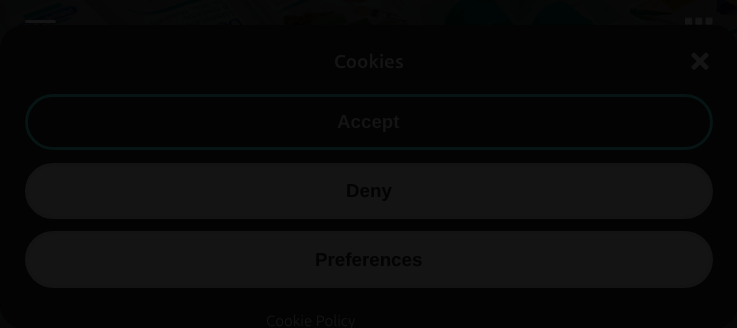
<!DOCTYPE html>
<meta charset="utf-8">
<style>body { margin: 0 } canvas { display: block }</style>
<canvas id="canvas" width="737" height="328"></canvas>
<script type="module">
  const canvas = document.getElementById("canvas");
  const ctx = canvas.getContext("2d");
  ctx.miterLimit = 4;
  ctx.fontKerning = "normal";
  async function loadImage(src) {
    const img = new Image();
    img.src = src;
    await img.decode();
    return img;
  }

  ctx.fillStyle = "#ffffff";
  ctx.fillRect(0, 0, 737, 328);
  ctx.drawImage(await loadImage("img1.png"), 0, 0, 737, 328);
  ctx.fillStyle = "#141414";
  ctx.beginPath();
  ctx.roundRect(25, 20, 31, 3, 1.5);
  ctx.fill();
  ctx.drawImage(await loadImage("img2.png"), 685, 17, 28, 8);
  ctx.fillStyle = "#030303";
  ctx.beginPath();
  ctx.roundRect(0, 25, 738, 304, 25);
  ctx.fill();
  ctx.font = "bold 18.75px Ubuntu";
  ctx.fillStyle = "#141414";
  ctx.fillText("Cookies", 334, 68);
  ctx.drawImage(await loadImage("img3.png"), 691, 52, 18, 18);
  ctx.beginPath();
  ctx.roundRect(26.5, 95.5, 685, 53, 26.5);
  ctx.strokeStyle = "#061413";
  ctx.lineWidth = 3;
  ctx.stroke();
  ctx.font = "bold 18.75px Liberation Sans";
  ctx.fillText("Accept", 337, 128);
  ctx.beginPath();
  ctx.roundRect(26.5, 164.5, 685, 53, 26.5);
  ctx.fill();
  ctx.strokeStyle = "#131313";
  ctx.stroke();
  ctx.fillStyle = "#030303";
  ctx.fillText("Deny", 346, 197);
  ctx.fillStyle = "#141414";
  ctx.beginPath();
  ctx.roundRect(26.5, 232.5, 685, 54, 27);
  ctx.fill();
  ctx.stroke();
  ctx.fillStyle = "#030303";
  ctx.fillText("Preferences", 315, 266);
  ctx.font = "15px Ubuntu";
  ctx.fillStyle = "#141414";
  ctx.fillText("Cookie Policy", 266, 326);
</script>
